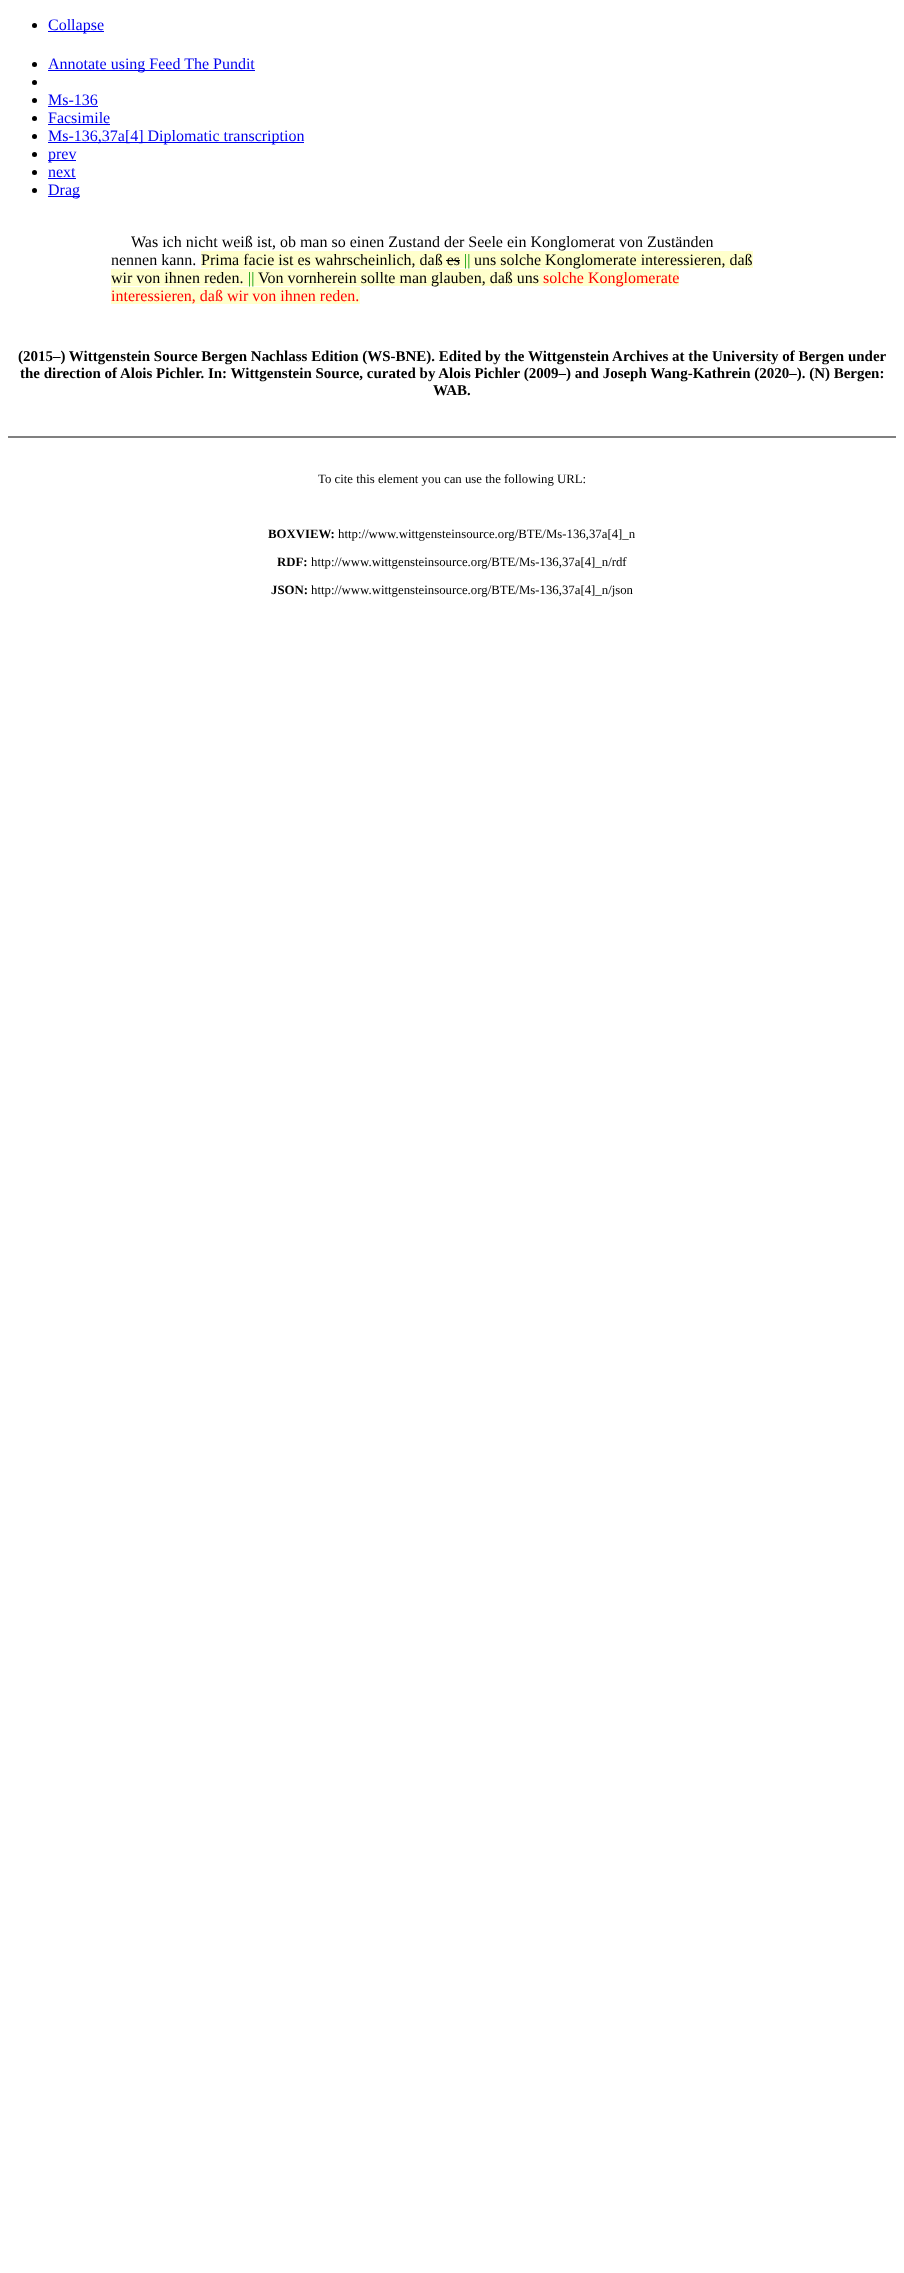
<!DOCTYPE html>
<meta charset="utf-8">
<style>body { margin: 0 } canvas { display: block }</style>
<canvas id="canvas" width="904" height="2273"></canvas>
<script type="module">
  const canvas = document.getElementById("canvas");
  const ctx = canvas.getContext("2d");
  ctx.miterLimit = 4;
  ctx.fontKerning = "normal";

  ctx.fillStyle = "#ffffff";
  ctx.fillRect(0, 0, 904, 2273);
  ctx.fillStyle = "#000000";
  ctx.beginPath();
  ctx.arc(34.5, 25.5, 2.5, 0, Math.PI * 2);
  ctx.fill();
  ctx.fillStyle = "#0000ee";
  ctx.fillRect(48, 31, 56, 1);
  ctx.font = "16px Liberation Serif";
  ctx.fillText("Collapse", 48, 30);
  ctx.fillStyle = "#000000";
  ctx.beginPath();
  ctx.arc(34.5, 64.5, 2.5, 0, Math.PI * 2);
  ctx.fill();
  ctx.fillStyle = "#0000ee";
  ctx.fillRect(48, 70, 207, 1);
  ctx.fillText("Annotate using Feed The Pundit", 48, 69);
  ctx.fillStyle = "#000000";
  ctx.beginPath();
  ctx.arc(34.5, 82.5, 2.5, 0, Math.PI * 2);
  ctx.fill();
  ctx.beginPath();
  ctx.arc(34.5, 100.5, 2.5, 0, Math.PI * 2);
  ctx.fill();
  ctx.fillStyle = "#0000ee";
  ctx.fillText("Ms-136", 48, 105);
  ctx.fillRect(48, 106, 50, 1);
  ctx.fillStyle = "#000000";
  ctx.beginPath();
  ctx.arc(34.5, 118.5, 2.5, 0, Math.PI * 2);
  ctx.fill();
  ctx.fillStyle = "#0000ee";
  ctx.fillText("Facsimile", 48, 123);
  ctx.fillRect(48, 124, 62, 1);
  ctx.fillStyle = "#000000";
  ctx.beginPath();
  ctx.arc(34.5, 136.5, 2.5, 0, Math.PI * 2);
  ctx.fill();
  ctx.fillStyle = "#0000ee";
  ctx.fillRect(48, 142, 256, 1);
  ctx.fillText("Ms-136,37a[4] Diplomatic transcription", 48, 141);
  ctx.fillStyle = "#000000";
  ctx.beginPath();
  ctx.arc(34.5, 154.5, 2.5, 0, Math.PI * 2);
  ctx.fill();
  ctx.fillStyle = "#0000ee";
  ctx.fillRect(48, 160, 28, 1);
  ctx.fillText("prev", 48, 159);
  ctx.fillStyle = "#000000";
  ctx.beginPath();
  ctx.arc(34.5, 172.5, 2.5, 0, Math.PI * 2);
  ctx.fill();
  ctx.fillStyle = "#0000ee";
  ctx.fillText("next", 48, 177);
  ctx.fillRect(48, 178, 28, 1);
  ctx.fillStyle = "#000000";
  ctx.beginPath();
  ctx.arc(34.5, 190.5, 2.5, 0, Math.PI * 2);
  ctx.fill();
  ctx.fillStyle = "#0000ee";
  ctx.fillRect(48, 196, 32, 1);
  ctx.fillText("Drag", 48, 195);
  ctx.fillStyle = "#000000";
  ctx.fillText("Was ich nicht weiß ist, ob man so einen Zustand der Seele ein Konglomerat von Zuständen", 131, 247);
  ctx.fillText("nennen kann.", 111, 265);
  ctx.fillStyle = "#ffffcc";
  ctx.fillRect(201, 251, 552, 17);
  ctx.fillStyle = "#000000";
  ctx.fillText("Prima facie ist es wahrscheinlich, daß es", 201, 265);
  ctx.fillRect(446, 260, 14, 1);
  ctx.fillStyle = "#009900";
  ctx.fillText("||", 464, 265);
  ctx.fillStyle = "#000000";
  ctx.fillText("uns solche Konglomerate interessieren, daß", 474, 265);
  ctx.fillStyle = "#ffffcc";
  ctx.fillRect(111, 269, 568, 17);
  ctx.fillStyle = "#000000";
  ctx.fillText("wir von ihnen reden.", 111, 283);
  ctx.fillStyle = "#009900";
  ctx.fillText("||", 248, 283);
  ctx.fillStyle = "#000000";
  ctx.fillText("Von vornherein sollte man glauben, daß uns", 258, 283);
  ctx.fillStyle = "#ff0000";
  ctx.fillText("solche Konglomerate", 543, 283);
  ctx.fillStyle = "#ffffcc";
  ctx.fillRect(111, 287, 249, 17);
  ctx.fillStyle = "#ff0000";
  ctx.fillText("interessieren, daß wir von ihnen reden.", 111, 301);
  ctx.font = "bold 14.98px Liberation Serif";
  ctx.fillStyle = "#000000";
  ctx.fillText("(2015–) Wittgenstein Source Bergen Nachlass Edition (WS-BNE). Edited by the Wittgenstein Archives at the University of Bergen under", 18, 361);
  ctx.fillText("the direction of Alois Pichler. In: Wittgenstein Source, curated by Alois Pichler (2009–) and Joseph Wang-Kathrein (2020–). (N) Bergen:", 20, 378);
  ctx.fillText("WAB.", 433, 395);
  ctx.fillStyle = "#808080";
  ctx.fillRect(8, 436, 888, 2);
  ctx.font = "12.8px Liberation Serif";
  ctx.fillStyle = "#000000";
  ctx.fillText("To cite this element you can use the following URL:", 318, 483);
  ctx.font = "bold 12.8px Liberation Serif";
  ctx.fillText("BOXVIEW:", 268, 538);
  ctx.font = "12.8px Liberation Serif";
  ctx.fillText("http://www.wittgensteinsource.org/BTE/Ms-136,37a[4]_n", 338, 538);
  ctx.font = "bold 12.8px Liberation Serif";
  ctx.fillText("RDF:", 277, 566);
  ctx.font = "12.8px Liberation Serif";
  ctx.fillText("http://www.wittgensteinsource.org/BTE/Ms-136,37a[4]_n/rdf", 311, 566);
  ctx.font = "bold 12.8px Liberation Serif";
  ctx.fillText("JSON:", 271, 594);
  ctx.font = "12.8px Liberation Serif";
  ctx.fillText("http://www.wittgensteinsource.org/BTE/Ms-136,37a[4]_n/json", 311, 594);
</script>
